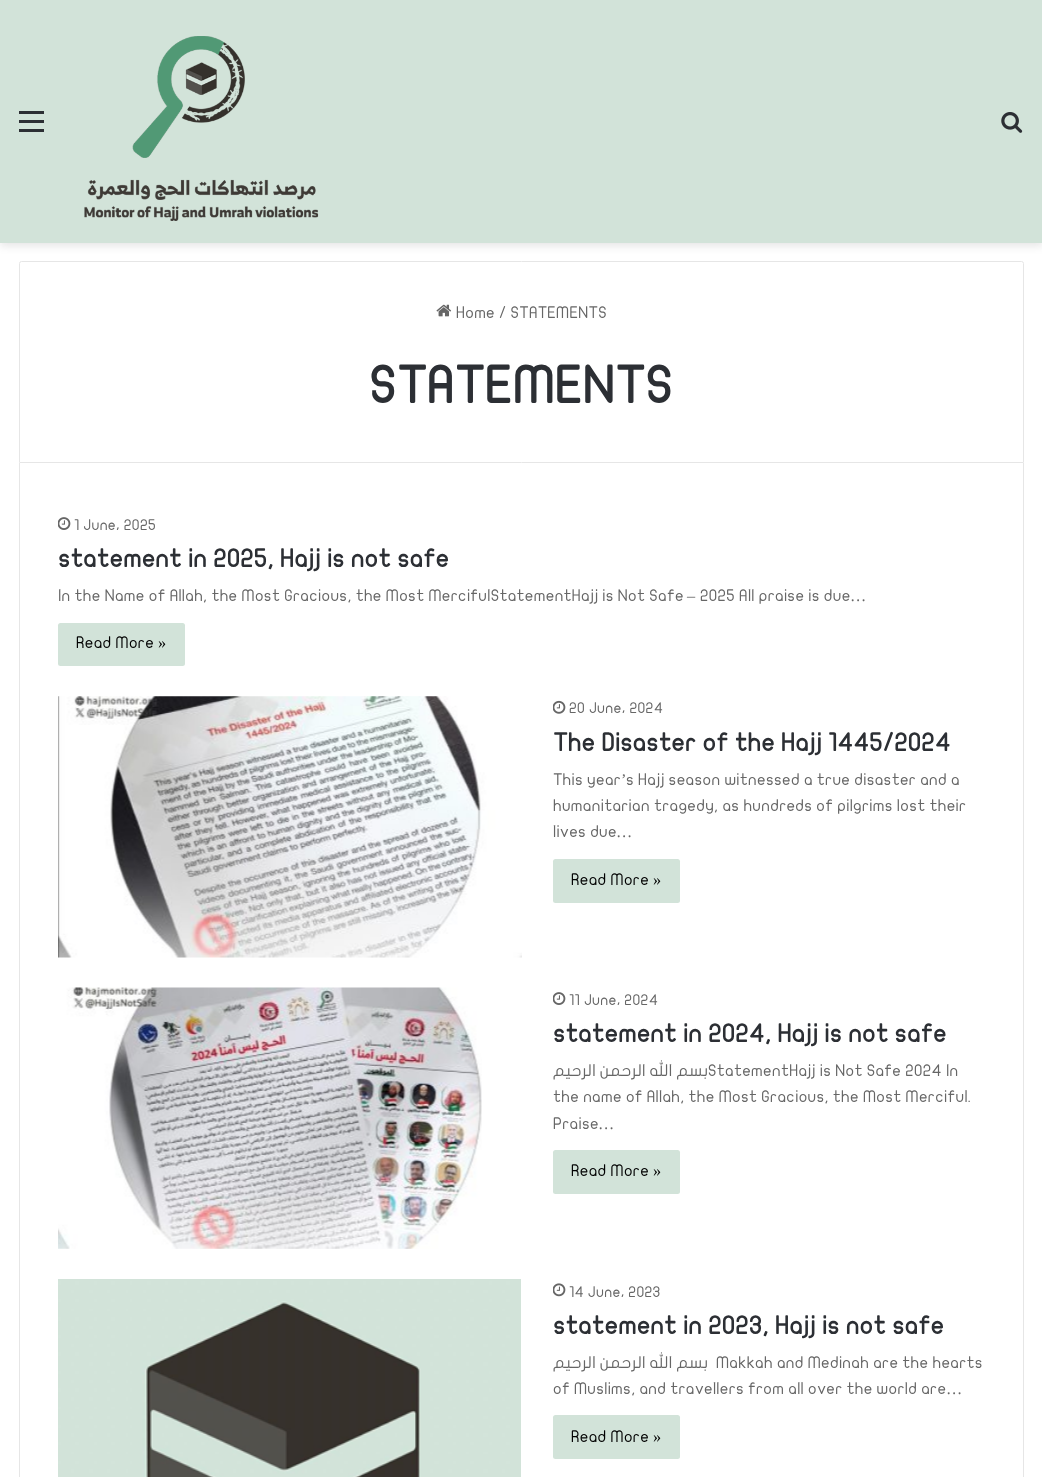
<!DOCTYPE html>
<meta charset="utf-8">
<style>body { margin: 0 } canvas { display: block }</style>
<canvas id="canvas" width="1042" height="1477"></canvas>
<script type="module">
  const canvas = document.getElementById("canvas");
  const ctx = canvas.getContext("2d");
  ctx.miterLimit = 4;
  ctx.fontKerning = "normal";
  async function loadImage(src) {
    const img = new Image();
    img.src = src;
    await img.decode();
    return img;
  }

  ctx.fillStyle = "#ffffff";
  ctx.fillRect(0, 0, 1042, 1477);
  ctx.fillStyle = "rgba(0, 0, 0, 0.1)";
  ctx.filter = "blur(4.5px)";
  ctx.beginPath();
  ctx.rect(0, 4, 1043, 242);
  ctx.fill();
  ctx.filter = "none";
  ctx.fillStyle = "#d2e3d9";
  ctx.fillRect(0, 0, 1042, 243);
  ctx.fillStyle = "#2c2f34";
  ctx.fillRect(19, 120, 25, 3);
  ctx.fillRect(19, 111, 25, 3);
  ctx.fillRect(19, 129, 25, 3);
  ctx.drawImage(await loadImage("img1.png"), 84, 36, 235, 185);
  ctx.drawImage(await loadImage("img2.png"), 1001, 112, 22, 21);
  ctx.beginPath();
  ctx.roundRect(19.5, 261.5, 1004, 201, [2, 2, 0, 0]);
  ctx.strokeStyle = "#e6e6e6";
  ctx.stroke();
  ctx.drawImage(await loadImage("img3.png"), 436, 304, 16, 13);
  ctx.font = "16.25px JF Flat";
  ctx.fillStyle = "#666666";
  ctx.fillText("Home / STATEMENTS", 456, 318);
  ctx.font = "bold 51.25px JF Flat";
  ctx.fillStyle = "#2c2f34";
  ctx.fillText("STATEMENTS", 369, 403);
  ctx.fillStyle = "#e6e6e6";
  ctx.fillRect(1023, 463, 1, 1014);
  ctx.fillRect(19, 463, 1, 1014);
  ctx.drawImage(await loadImage("img4.png"), 58, 517, 13, 13);
  ctx.font = "15px JF Flat";
  ctx.fillStyle = "#666666";
  ctx.fillText("1 June، 2025", 74, 530);
  ctx.font = "bold 25px JF Flat";
  ctx.fillStyle = "#2c2f34";
  ctx.fillText("statement in 2025, Hajj is not safe", 58, 567);
  ctx.font = "16.25px JF Flat";
  ctx.fillStyle = "#666666";
  ctx.fillText("In the Name of Allah, the Most Gracious, the Most MercifulStatementHajj is Not Safe", 58, 601);
  ctx.font = "16.25px Liberation Serif";
  ctx.fillText("–", 687, 601);
  ctx.font = "16.25px JF Flat";
  ctx.fillText("2025 All praise is due", 700, 601);
  ctx.font = "16.25px Liberation Serif";
  ctx.fillText("…", 850, 601);
  ctx.fillStyle = "#d2e3d9";
  ctx.beginPath();
  ctx.roundRect(58, 623, 127, 43, 2.5);
  ctx.fill();
  ctx.font = "16.25px JF Flat";
  ctx.fillStyle = "#000000";
  ctx.fillText("Read More", 76, 648);
  ctx.font = "16.25px Liberation Serif";
  ctx.fillText("»", 158, 648);
  ctx.drawImage(await loadImage("img5.png"), 58, 696, 464, 262);
  ctx.drawImage(await loadImage("img6.png"), 553, 700, 13, 14);
  ctx.font = "15px JF Flat";
  ctx.fillStyle = "#666666";
  ctx.fillText("20 June، 2024", 569, 713);
  ctx.font = "bold 25px JF Flat";
  ctx.fillStyle = "#2c2f34";
  ctx.fillText("The Disaster of the Hajj 1445/2024", 553, 751);
  ctx.font = "16.25px JF Flat";
  ctx.fillStyle = "#666666";
  ctx.fillText("This year", 553, 785);
  ctx.font = "16.25px Liberation Serif";
  ctx.fillText("’", 621, 785);
  ctx.font = "16.25px JF Flat";
  ctx.fillText("s Hajj season witnessed a true disaster and a", 626, 785);
  ctx.fillText("humanitarian tragedy, as hundreds of pilgrims lost their", 553, 811);
  ctx.fillText("lives due", 553, 837);
  ctx.font = "16.25px Liberation Serif";
  ctx.fillText("…", 616, 837);
  ctx.fillStyle = "#d2e3d9";
  ctx.beginPath();
  ctx.roundRect(553, 859, 127, 44, 2.5);
  ctx.fill();
  ctx.font = "16.25px JF Flat";
  ctx.fillStyle = "#000000";
  ctx.fillText("Read More", 571, 885);
  ctx.font = "16.25px Liberation Serif";
  ctx.fillText("»", 653, 885);
  ctx.drawImage(await loadImage("img7.png"), 58, 987, 424, 262);
  ctx.drawImage(await loadImage("img4.png"), 553, 992, 13, 13);
  ctx.font = "15px JF Flat";
  ctx.fillStyle = "#666666";
  ctx.fillText("11 June، 2024", 569, 1005);
  ctx.font = "bold 25px JF Flat";
  ctx.fillStyle = "#2c2f34";
  ctx.fillText("statement in 2024, Hajj is not safe", 553, 1042);
  ctx.direction = "rtl";
  ctx.font = "16.25px JF Flat";
  ctx.fillStyle = "#666666";
  ctx.fillText("بسم الله الرحمن الرحيم", 708, 1076);
  ctx.direction = "ltr";
  ctx.fillText("StatementHajj is Not Safe 2024 In", 708, 1076);
  ctx.fillText("the name of Allah, the Most Gracious, the Most Merciful.", 553, 1102);
  ctx.fillText("Praise", 553, 1129);
  ctx.font = "16.25px Liberation Serif";
  ctx.fillText("…", 598, 1129);
  ctx.fillStyle = "#d2e3d9";
  ctx.beginPath();
  ctx.roundRect(553, 1150, 127, 44, 2.5);
  ctx.fill();
  ctx.font = "16.25px JF Flat";
  ctx.fillStyle = "#000000";
  ctx.fillText("Read More", 571, 1176);
  ctx.font = "16.25px Liberation Serif";
  ctx.fillText("»", 653, 1176);
  ctx.drawImage(await loadImage("img8.png"), 58, 1279, 463, 198);
  ctx.drawImage(await loadImage("img9.png"), 553, 1283, 13, 14);
  ctx.font = "15px JF Flat";
  ctx.fillStyle = "#666666";
  ctx.fillText("14 June، 2023", 569, 1297);
  ctx.font = "bold 25px JF Flat";
  ctx.fillStyle = "#2c2f34";
  ctx.fillText("statement in 2023, Hajj is not safe", 553, 1334);
  ctx.direction = "rtl";
  ctx.font = "16.25px JF Flat";
  ctx.fillStyle = "#666666";
  ctx.fillText("بسم الله الرحمن الرحيم", 708, 1368);
  ctx.direction = "ltr";
  ctx.fillText("Makkah and Medinah are the hearts", 716, 1368);
  ctx.fillText("of Muslims, and travellers from all over the world are", 553, 1394);
  ctx.font = "16.25px Liberation Serif";
  ctx.fillText("…", 946, 1394);
  ctx.fillStyle = "#d2e3d9";
  ctx.beginPath();
  ctx.roundRect(553, 1415, 127, 44, 2.5);
  ctx.fill();
  ctx.font = "16.25px JF Flat";
  ctx.fillStyle = "#000000";
  ctx.fillText("Read More", 571, 1442);
  ctx.font = "16.25px Liberation Serif";
  ctx.fillText("»", 653, 1442);
</script>
